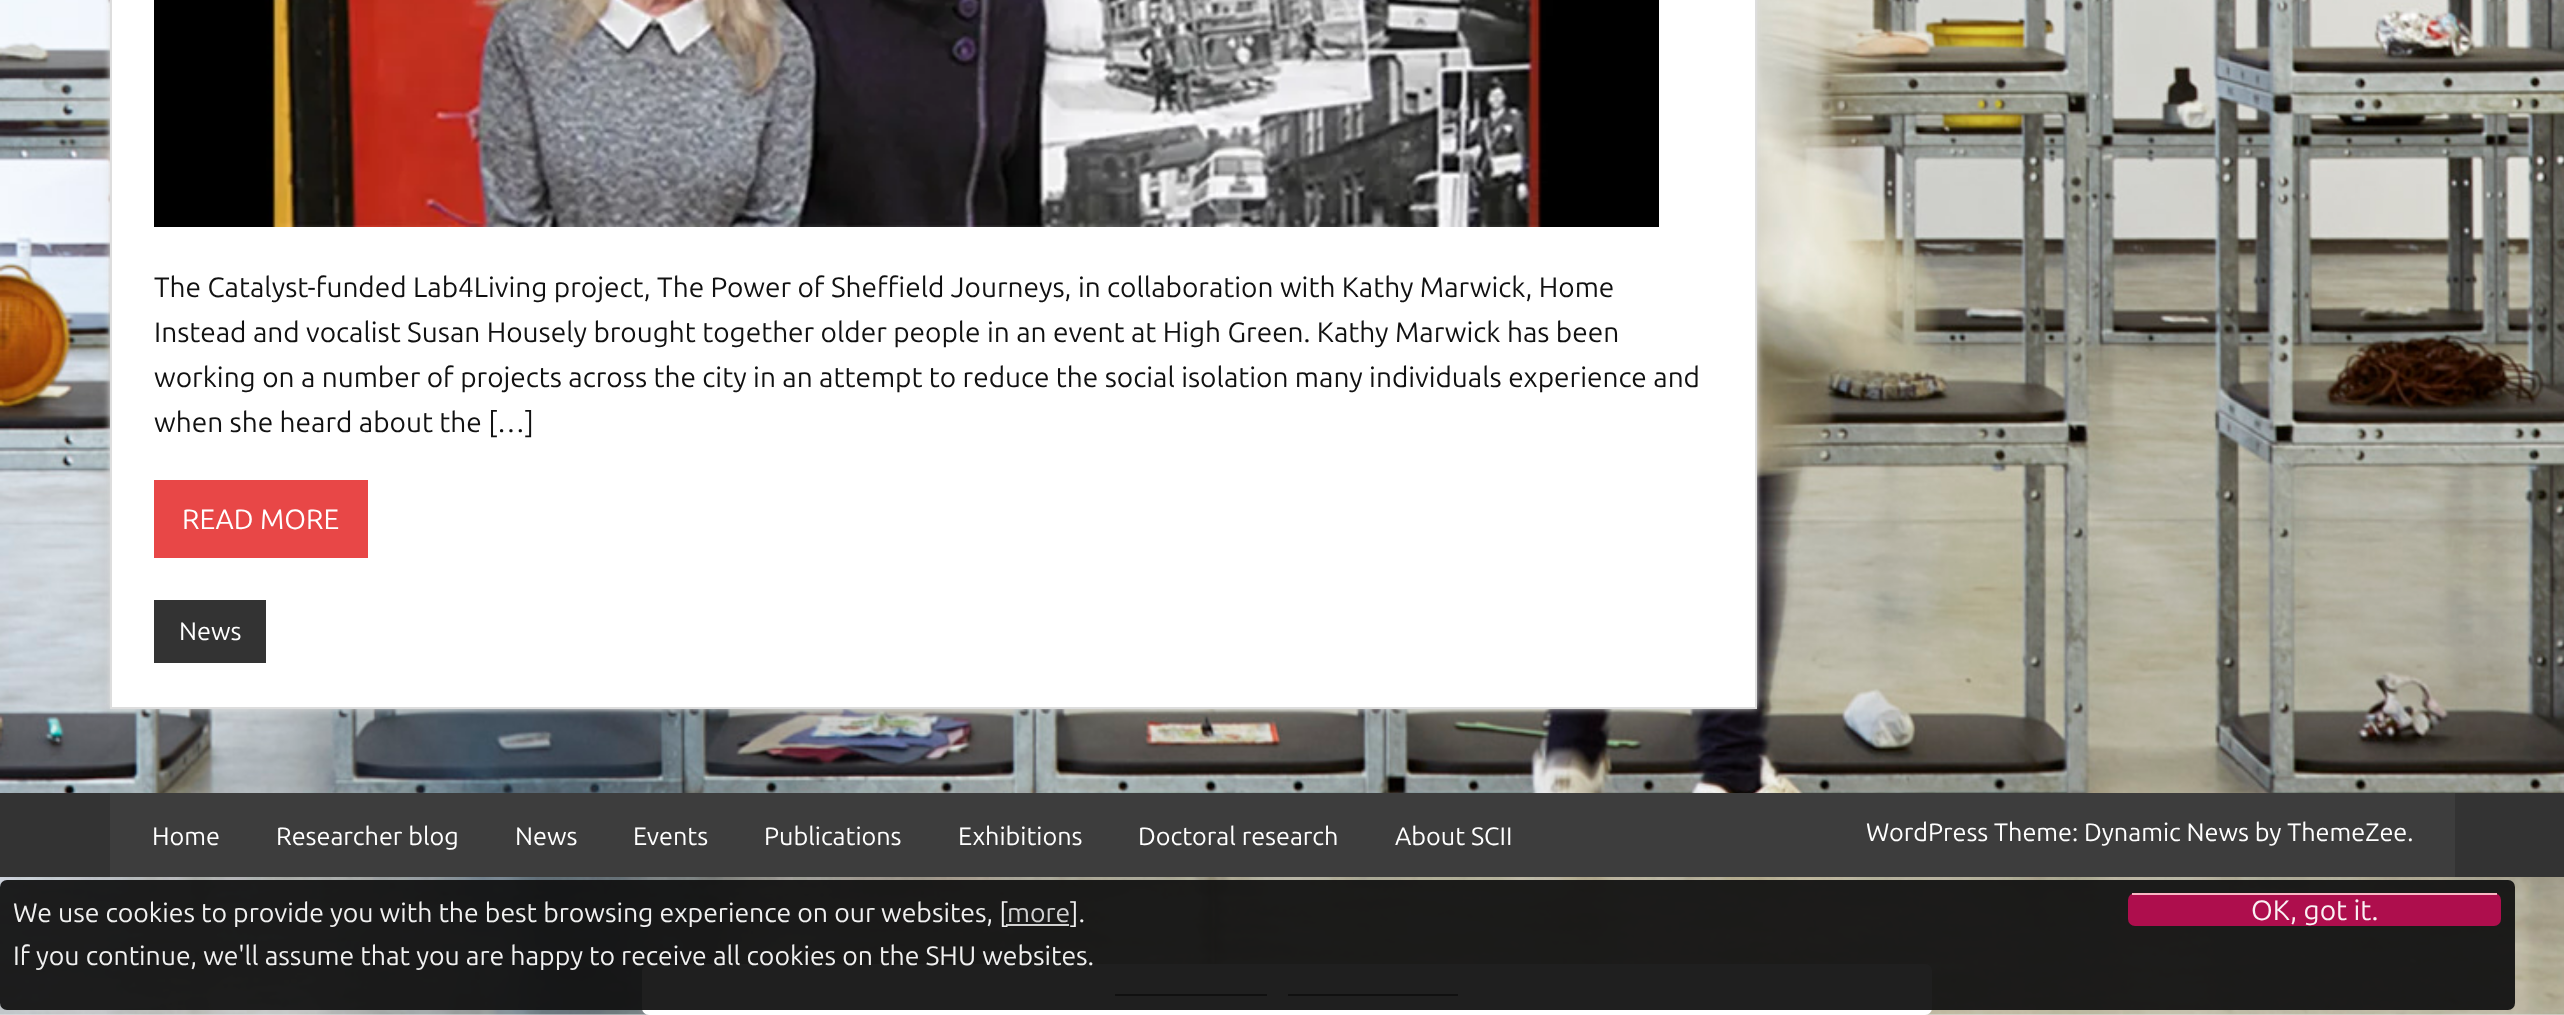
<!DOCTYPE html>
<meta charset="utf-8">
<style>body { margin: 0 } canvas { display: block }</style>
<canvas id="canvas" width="2564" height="1015"></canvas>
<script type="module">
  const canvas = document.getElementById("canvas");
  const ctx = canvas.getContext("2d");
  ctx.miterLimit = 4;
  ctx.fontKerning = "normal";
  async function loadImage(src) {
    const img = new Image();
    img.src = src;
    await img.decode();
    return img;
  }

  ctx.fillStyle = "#e5e5e5";
  ctx.fillRect(0, 0, 2564, 1015);
  ctx.drawImage(await loadImage("img1.png"), 0, 0, 2564, 1015);
  ctx.fillStyle = "#dddddd";
  ctx.filter = "blur(3.5px)";
  ctx.beginPath();
  ctx.rect(110, -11, 1647, 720);
  ctx.fill();
  ctx.filter = "none";
  ctx.fillStyle = "#ffffff";
  ctx.beginPath();
  ctx.rect(111, -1, 1645, 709);
  ctx.fill();
  ctx.strokeStyle = "#dddddd";
  ctx.lineWidth = 2;
  ctx.stroke();
  ctx.drawImage(await loadImage("img2.png"), 154, 0, 1505, 227);
  ctx.font = "28px Ubuntu";
  ctx.fillStyle = "#111111";
  ctx.fillText("The Catalyst-funded Lab4Living project, The Power of Sheffield Journeys, in collaboration with Kathy Marwick, Home", 154, 297);
  ctx.fillText("Instead and vocalist Susan Housely brought together older people in an event at High Green. Kathy Marwick has been", 154, 342);
  ctx.fillText("working on a number of projects across the city in an attempt to reduce the social isolation many individuals experience and", 154, 387);
  ctx.fillText("when she heard about the […]", 154, 432);
  ctx.fillStyle = "#e84747";
  ctx.fillRect(154, 480, 214, 78);
  ctx.fillStyle = "#ffffff";
  ctx.fillText("READ MORE", 182, 529);
  ctx.fillStyle = "#333333";
  ctx.fillRect(154, 600, 112, 63);
  ctx.font = "25.2px Ubuntu";
  ctx.fillStyle = "#ffffff";
  ctx.fillText("News", 179, 640);
  ctx.fillStyle = "#333333";
  ctx.fillRect(0, 793, 2564, 84);
  ctx.fillStyle = "#3d3d3d";
  ctx.fillRect(110, 793, 2345, 84);
  ctx.fillStyle = "#ffffff";
  ctx.fillText("Home", 152, 845);
  ctx.fillText("Researcher blog", 276, 845);
  ctx.fillText("News", 515, 845);
  ctx.fillText("Events", 633, 845);
  ctx.fillText("Publications", 764, 845);
  ctx.fillText("Exhibitions", 958, 845);
  ctx.fillText("Doctoral research", 1138, 845);
  ctx.fillText("About SCII", 1395, 845);
  ctx.fillText("WordPress Theme: Dynamic News by ThemeZee.", 1866, 841);
  ctx.beginPath();
  ctx.roundRect(642, 964, 1290, 51, 7);
  ctx.fill();
  ctx.fillStyle = "#000000";
  ctx.fillRect(1115, 994, 152, 2);
  ctx.fillRect(1288, 994, 170, 2);
  ctx.fillStyle = "rgba(17, 17, 17, 0.94)";
  ctx.beginPath();
  ctx.roundRect(0, 880, 2515, 130, 7);
  ctx.fill();
  ctx.font = "26.6px Ubuntu";
  ctx.fillStyle = "#f1f1f1";
  ctx.fillText("We use cookies to provide you with the best browsing experience on our websites, [", 13, 922);
  ctx.fillStyle = "#d1d1d1";
  ctx.fillText("more", 1007, 922);
  ctx.fillStyle = "rgba(221, 221, 221, 0.94)";
  ctx.fillRect(1006, 924, 63, 2);
  ctx.fillStyle = "#f1f1f1";
  ctx.fillText("].", 1070, 922);
  ctx.fillText("If you continue, we'll assume that you are happy to receive all cookies on the SHU websites.", 13, 965);
  ctx.fillStyle = "#ae0e4d";
  ctx.beginPath();
  ctx.roundRect(2128, 893, 373, 33, 7);
  ctx.fill();
  ctx.fillStyle = "rgba(255, 192, 203, 0.94)";
  ctx.fillRect(2132, 893, 365, 2);
  ctx.font = "28px Ubuntu";
  ctx.fillStyle = "#faf1f4";
  ctx.fillText("OK, got it.", 2251, 920);
</script>
